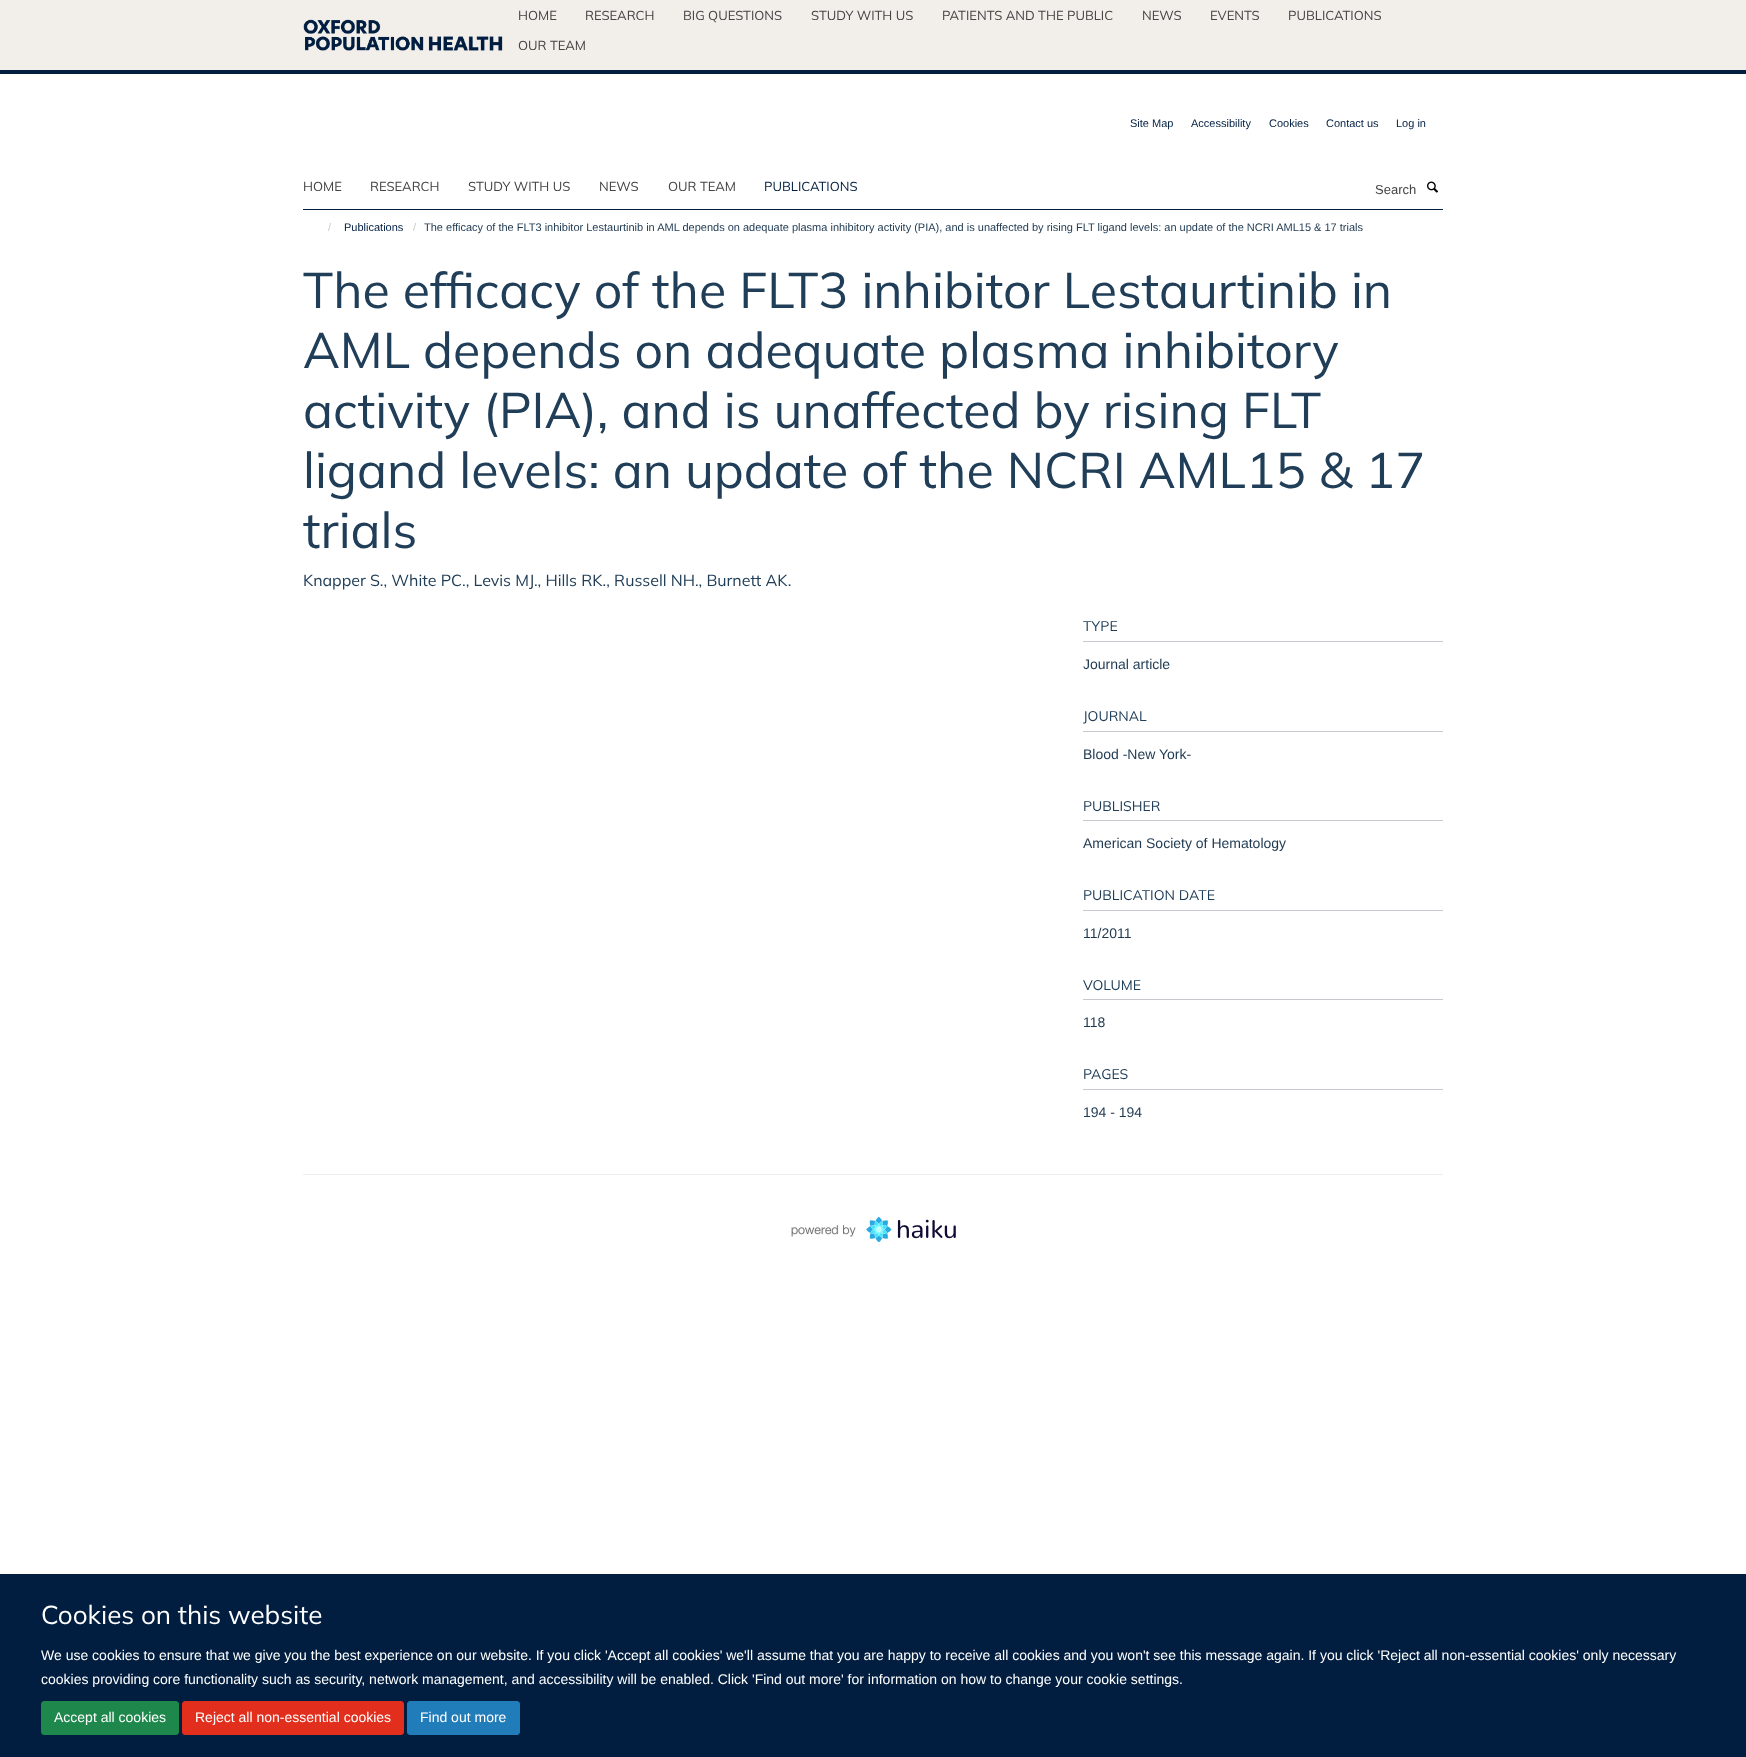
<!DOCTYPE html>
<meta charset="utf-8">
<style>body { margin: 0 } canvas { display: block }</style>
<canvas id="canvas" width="1746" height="1757"></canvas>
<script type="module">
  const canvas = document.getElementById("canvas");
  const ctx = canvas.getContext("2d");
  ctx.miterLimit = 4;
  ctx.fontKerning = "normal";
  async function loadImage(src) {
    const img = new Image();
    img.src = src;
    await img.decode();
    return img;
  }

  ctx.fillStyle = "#ffffff";
  ctx.fillRect(0, 0, 1746, 1757);
  ctx.fillStyle = "#f2efeb";
  ctx.fillRect(0, 0, 1746, 70);
  ctx.fillStyle = "#011e41";
  ctx.fillRect(0, 70, 1746, 4);
  ctx.drawImage(await loadImage("img1.png"), 303, 19, 200, 32);
  ctx.font = "13px Mulish";
  ctx.fillStyle = "#444444";
  ctx.fillText("HOME", 518, 20);
  ctx.fillText("RESEARCH", 585, 20);
  ctx.fillText("BIG QUESTIONS", 683, 20);
  ctx.fillText("STUDY WITH US", 811, 20);
  ctx.fillText("PATIENTS AND THE PUBLIC", 942, 20);
  ctx.fillText("NEWS", 1142, 20);
  ctx.fillText("EVENTS", 1210, 20);
  ctx.fillText("PUBLICATIONS", 1288, 20);
  ctx.fillText("OUR TEAM", 518, 50);
  ctx.font = "11px Liberation Sans";
  ctx.fillStyle = "#011e41";
  ctx.fillText("Site Map", 1130, 127);
  ctx.fillText("Accessibility", 1191, 127);
  ctx.fillText("Cookies", 1269, 127);
  ctx.fillText("Contact us", 1326, 127);
  ctx.fillText("Log in", 1396, 127);
  ctx.fillRect(303, 209, 1140, 1);
  ctx.font = "13px Mulish";
  ctx.fillStyle = "#444444";
  ctx.fillText("HOME", 303, 191);
  ctx.fillText("RESEARCH", 370, 191);
  ctx.fillText("STUDY WITH US", 468, 191);
  ctx.fillText("NEWS", 599, 191);
  ctx.fillText("OUR TEAM", 668, 191);
  ctx.fillStyle = "#011e41";
  ctx.fillText("PUBLICATIONS", 764, 191);
  ctx.font = "13px Liberation Sans";
  ctx.fillStyle = "#444444";
  ctx.fillText("Search", 1375, 194);
  ctx.drawImage(await loadImage("img2.png"), 1427, 181, 11, 12);
  ctx.font = "11px Liberation Sans";
  ctx.fillStyle = "#cccccc";
  ctx.fillText("/", 328, 231);
  ctx.fillStyle = "#011e41";
  ctx.fillText("Publications", 344, 231);
  ctx.fillStyle = "#cccccc";
  ctx.fillText("/", 413, 231);
  ctx.fillStyle = "#1d3850";
  ctx.fillText("The efficacy of the FLT3 inhibitor Lestaurtinib in AML depends on adequate plasma inhibitory activity (PIA), and is unaffected by rising FLT ligand levels: an update of the NCRI AML15 & 17 trials", 424, 231);
  ctx.font = "50px Mulish";
  ctx.fillStyle = "#203e58";
  ctx.fillText("The efficacy of the FLT3 inhibitor Lestaurtinib in", 303, 308);
  ctx.fillText("AML depends on adequate plasma inhibitory", 303, 368);
  ctx.fillText("activity (PIA), and is unaffected by rising FLT", 303, 428);
  ctx.fillText("ligand levels: an update of the NCRI AML15 & 17", 303, 488);
  ctx.fillText("trials", 303, 548);
  ctx.font = "16px Mulish";
  ctx.fillText("Knapper S., White PC., Levis MJ., Hills RK., Russell NH., Burnett AK.", 303, 586);
  ctx.fillStyle = "#c6cacf";
  ctx.fillRect(1083, 641, 360, 1);
  ctx.font = "14px Mulish";
  ctx.fillStyle = "#203e58";
  ctx.fillText("TYPE", 1083, 631);
  ctx.font = "14px Liberation Sans";
  ctx.fillStyle = "#1d3850";
  ctx.fillText("Journal article", 1083, 669);
  ctx.fillStyle = "#c6cacf";
  ctx.fillRect(1083, 731, 360, 1);
  ctx.font = "14px Mulish";
  ctx.fillStyle = "#203e58";
  ctx.fillText("JOURNAL", 1083, 721);
  ctx.font = "14px Liberation Sans";
  ctx.fillStyle = "#1d3850";
  ctx.fillText("Blood -New York-", 1083, 759);
  ctx.fillStyle = "#c6cacf";
  ctx.fillRect(1083, 820, 360, 1);
  ctx.font = "14px Mulish";
  ctx.fillStyle = "#203e58";
  ctx.fillText("PUBLISHER", 1083, 811);
  ctx.font = "14px Liberation Sans";
  ctx.fillStyle = "#1d3850";
  ctx.fillText("American Society of Hematology", 1083, 848);
  ctx.fillStyle = "#c6cacf";
  ctx.fillRect(1083, 910, 360, 1);
  ctx.font = "14px Mulish";
  ctx.fillStyle = "#203e58";
  ctx.fillText("PUBLICATION DATE", 1083, 900);
  ctx.font = "14px Liberation Sans";
  ctx.fillStyle = "#1d3850";
  ctx.fillText("11/2011", 1083, 938);
  ctx.fillStyle = "#c6cacf";
  ctx.fillRect(1083, 999, 360, 1);
  ctx.font = "14px Mulish";
  ctx.fillStyle = "#203e58";
  ctx.fillText("VOLUME", 1083, 990);
  ctx.font = "14px Liberation Sans";
  ctx.fillStyle = "#1d3850";
  ctx.fillText("118", 1083, 1027);
  ctx.fillStyle = "#c6cacf";
  ctx.fillRect(1083, 1089, 360, 1);
  ctx.font = "14px Mulish";
  ctx.fillStyle = "#203e58";
  ctx.fillText("PAGES", 1083, 1079);
  ctx.font = "14px Liberation Sans";
  ctx.fillStyle = "#1d3850";
  ctx.fillText("194 - 194", 1083, 1117);
  ctx.fillStyle = "#eeeeee";
  ctx.fillRect(303, 1174, 1140, 1);
  ctx.drawImage(await loadImage("img3.png"), 791, 1216, 165, 27);
  ctx.fillStyle = "#011e41";
  ctx.fillRect(0, 1574, 1746, 183);
  ctx.font = "26px Mulish";
  ctx.fillStyle = "#ffffff";
  ctx.fillText("Cookies on this website", 41, 1624);
  ctx.font = "14px Liberation Sans";
  ctx.fillText("We use cookies to ensure that we give you the best experience on our website. If you click 'Accept all cookies' we'll assume that you are happy to receive all cookies and you won't see this message again. If you click 'Reject all non-essential cookies' only necessary", 41, 1660);
  ctx.fillText("cookies providing core functionality such as security, network management, and accessibility will be enabled. Click 'Find out more' for information on how to change your cookie settings.", 41, 1684);
  ctx.fillStyle = "#1e874b";
  ctx.beginPath();
  ctx.roundRect(41.5, 1701.5, 137, 33, 2.5);
  ctx.fill();
  ctx.strokeStyle = "#1e874b";
  ctx.stroke();
  ctx.fillStyle = "#ffffff";
  ctx.fillText("Accept all cookies", 54, 1722);
  ctx.fillStyle = "#e22e1c";
  ctx.beginPath();
  ctx.roundRect(182.5, 1701.5, 221, 33, 2.5);
  ctx.fill();
  ctx.strokeStyle = "#e22e1c";
  ctx.stroke();
  ctx.fillStyle = "#ffffff";
  ctx.fillText("Reject all non-essential cookies", 195, 1722);
  ctx.fillStyle = "#217cba";
  ctx.beginPath();
  ctx.roundRect(407.5, 1701.5, 112, 33, 2.5);
  ctx.fill();
  ctx.strokeStyle = "#217cba";
  ctx.stroke();
  ctx.fillStyle = "#ffffff";
  ctx.fillText("Find out more", 420, 1722);
</script>
